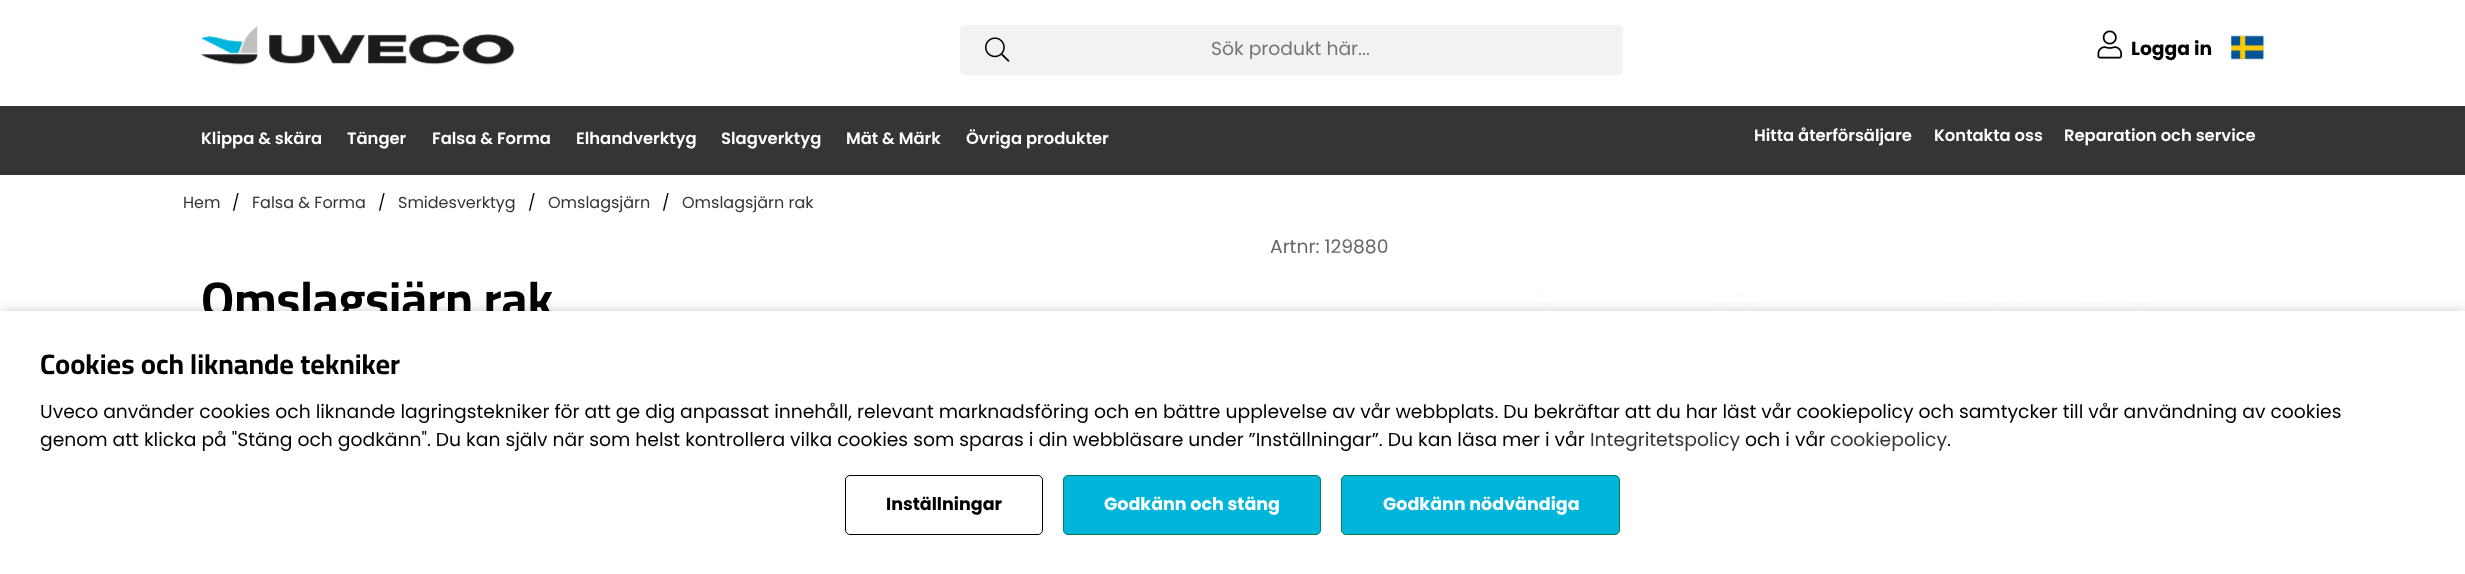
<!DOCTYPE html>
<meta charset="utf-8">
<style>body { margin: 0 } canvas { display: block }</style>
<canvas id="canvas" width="2465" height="574"></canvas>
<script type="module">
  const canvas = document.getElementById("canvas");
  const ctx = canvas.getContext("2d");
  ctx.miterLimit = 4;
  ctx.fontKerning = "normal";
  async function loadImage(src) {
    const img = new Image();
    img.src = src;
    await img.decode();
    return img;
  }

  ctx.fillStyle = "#ffffff";
  ctx.fillRect(0, 0, 2465, 574);
  ctx.drawImage(await loadImage("img1.png"), 201, 26, 314, 39);
  ctx.fillStyle = "#f2f2f2";
  ctx.beginPath();
  ctx.roundRect(960, 25, 663, 50, 5);
  ctx.fill();
  ctx.drawImage(await loadImage("img2.png"), 985, 37, 25, 25);
  ctx.save();
  ctx.beginPath();
  ctx.rect(985, 40, 613, 19);
  ctx.clip();
  ctx.font = "18.75px Poppins";
  ctx.fillStyle = "#757575";
  ctx.fillText("Sök produkt här...", 1211, 55);
  ctx.restore();
  ctx.drawImage(await loadImage("img3.png"), 2097, 30, 25, 29);
  ctx.font = "bold 18.75px Poppins";
  ctx.fillStyle = "#000000";
  ctx.fillText("Logga in", 2131, 55);
  ctx.drawImage(await loadImage("img4.png"), 2231, 35, 33, 25);
  ctx.fillStyle = "#363434";
  ctx.fillRect(0, 106, 2465, 69);
  ctx.font = "600 16.4px Poppins";
  ctx.fillStyle = "#ffffff";
  ctx.fillText("Klippa & skära", 201, 144);
  ctx.fillText("Tänger", 347, 144);
  ctx.fillText("Falsa & Forma", 432, 144);
  ctx.fillText("Elhandverktyg", 576, 144);
  ctx.fillText("Slagverktyg", 721, 144);
  ctx.fillText("Mät & Märk", 846, 144);
  ctx.fillText("Övriga produkter", 966, 144);
  ctx.fillText("Hitta återförsäljare", 1754, 141);
  ctx.fillText("Kontakta oss", 1934, 141);
  ctx.fillText("Reparation och service", 2064, 141);
  ctx.font = "16px Poppins";
  ctx.fillStyle = "#363434";
  ctx.fillText("Hem", 183, 208);
  ctx.fillStyle = "#000000";
  ctx.fillText("/", 232, 208);
  ctx.fillStyle = "#363434";
  ctx.fillText("Falsa & Forma", 252, 208);
  ctx.fillStyle = "#000000";
  ctx.fillText("/", 378, 208);
  ctx.fillStyle = "#363434";
  ctx.fillText("Smidesverktyg", 398, 208);
  ctx.fillStyle = "#000000";
  ctx.fillText("/", 528, 208);
  ctx.fillStyle = "#363434";
  ctx.fillText("Omslagsjärn", 548, 208);
  ctx.fillStyle = "#000000";
  ctx.fillText("/", 662, 208);
  ctx.fillStyle = "#363434";
  ctx.fillText("Omslagsjärn rak", 682, 208);
  ctx.font = "18.75px Poppins";
  ctx.fillStyle = "#666666";
  ctx.fillText("Artnr: 129880", 1270, 253);
  ctx.font = "bold 50px Cairo";
  ctx.fillStyle = "#000000";
  ctx.fillText("Omslagsjärn rak", 201, 317);
  ctx.drawImage(await loadImage("img5.png"), 1511, 291, 679, 20);
  ctx.fillStyle = "rgba(0, 0, 0, 0.2)";
  ctx.filter = "blur(6px)";
  ctx.beginPath();
  ctx.rect(0, 311, 2465, 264);
  ctx.fill();
  ctx.filter = "none";
  ctx.fillStyle = "#ffffff";
  ctx.fillRect(0, 311, 2465, 263);
  ctx.font = "bold 28.1px Cairo";
  ctx.fillStyle = "#000000";
  ctx.fillText("Cookies och liknande tekniker", 40, 374);
  ctx.font = "18.75px Poppins";
  ctx.fillText("Uveco använder cookies och liknande lagringstekniker för att ge dig anpassat innehåll, relevant marknadsföring och en bättre upplevelse av vår webbplats. Du bekräftar att du har läst vår cookiepolicy och samtycker till vår användning av cookies", 40, 418);
  ctx.fillText("genom att klicka på \"Stäng och godkänn\". Du kan själv när som helst kontrollera vilka cookies som sparas i din webbläsare under ”Inställningar”. Du kan läsa mer i vår", 40, 446);
  ctx.fillStyle = "#363434";
  ctx.fillText("Integritetspolicy", 1590, 446);
  ctx.fillStyle = "#000000";
  ctx.fillText("och i vår", 1745, 446);
  ctx.fillStyle = "#363434";
  ctx.fillText("cookiepolicy", 1830, 446);
  ctx.fillStyle = "#000000";
  ctx.fillText(".", 1947, 446);
  ctx.beginPath();
  ctx.roundRect(845.5, 475.5, 197, 59, 4.5);
  ctx.strokeStyle = "#000000";
  ctx.stroke();
  ctx.font = "bold 17.5px Poppins";
  ctx.fillText("Inställningar", 886, 510);
  ctx.fillStyle = "#00b5db";
  ctx.beginPath();
  ctx.roundRect(1063.5, 475.5, 257, 59, 4.5);
  ctx.fill();
  ctx.strokeStyle = "#008448";
  ctx.stroke();
  ctx.fillStyle = "#ffffff";
  ctx.fillText("Godkänn och stäng", 1104, 510);
  ctx.fillStyle = "#00b5db";
  ctx.beginPath();
  ctx.roundRect(1341.5, 475.5, 278, 59, 4.5);
  ctx.fill();
  ctx.stroke();
  ctx.fillStyle = "#ffffff";
  ctx.fillText("Godkänn nödvändiga", 1383, 510);
</script>
